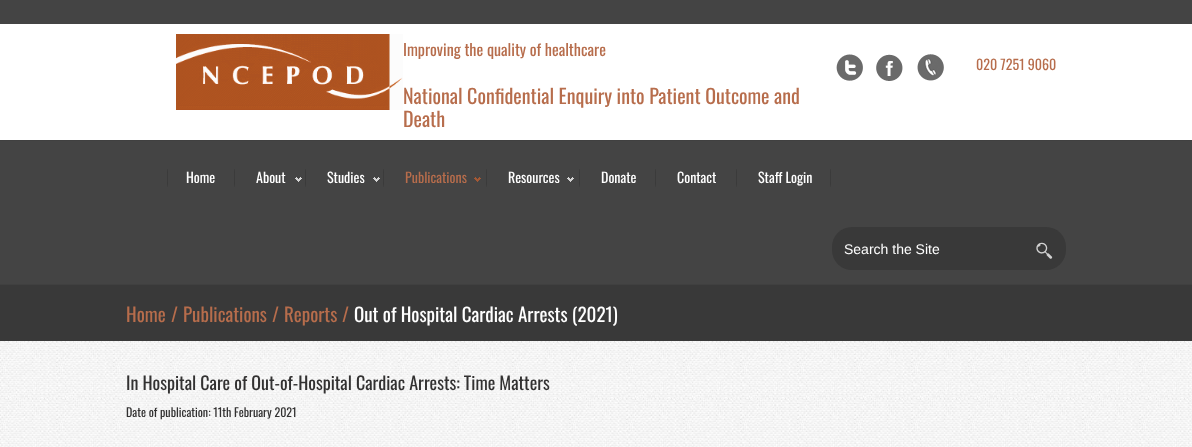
<!DOCTYPE html>
<meta charset="utf-8">
<style>body { margin: 0 } canvas { display: block }</style>
<canvas id="canvas" width="1192" height="447"></canvas>
<script type="module">
  const canvas = document.getElementById("canvas");
  const ctx = canvas.getContext("2d");
  ctx.miterLimit = 4;
  ctx.fontKerning = "normal";
  async function loadImage(src) {
    const img = new Image();
    img.src = src;
    await img.decode();
    return img;
  }

  ctx.fillStyle = "#444444";
  ctx.fillRect(0, 0, 1192, 447);
  ctx.fillStyle = "#ffffff";
  ctx.fillRect(0, 24, 1192, 116);
  ctx.fillStyle = "#404040";
  ctx.fillRect(0, 140, 1192, 1);
  ctx.drawImage(await loadImage("img1.png"), 176, 34, 227, 76);
  ctx.font = "16px Oswald";
  ctx.fillStyle = "#b76d4c";
  ctx.fillText("Improving the quality of healthcare", 403, 56);
  ctx.drawImage(await loadImage("img2.png"), 836, 54, 27, 27);
  ctx.drawImage(await loadImage("img3.png"), 876, 54, 27, 27);
  ctx.drawImage(await loadImage("img4.png"), 917, 54, 27, 27);
  ctx.font = "14px Oswald";
  ctx.fillText("020 7251 9060", 976, 70);
  ctx.font = "20px Oswald";
  ctx.fillText("National Confidential Enquiry into Patient Outcome and", 403, 104);
  ctx.fillText("Death", 403, 127);
  ctx.fillStyle = "#404040";
  ctx.fillRect(0, 284, 1192, 1);
  ctx.drawImage(await loadImage("img5.png"), 234, 169, 1, 18);
  ctx.drawImage(await loadImage("img5.png"), 167, 169, 1, 18);
  ctx.font = "14px Oswald";
  ctx.fillStyle = "#ffffff";
  ctx.fillText("Home", 186, 183);
  ctx.drawImage(await loadImage("img5.png"), 305, 169, 1, 18);
  ctx.fillText("About", 256, 183);
  ctx.drawImage(await loadImage("img6.png"), 295, 177, 7, 5);
  ctx.drawImage(await loadImage("img5.png"), 383, 169, 1, 18);
  ctx.fillText("Studies", 327, 183);
  ctx.drawImage(await loadImage("img6.png"), 373, 177, 7, 5);
  ctx.drawImage(await loadImage("img5.png"), 486, 169, 1, 18);
  ctx.fillStyle = "#b76d4c";
  ctx.fillText("Publications", 405, 183);
  ctx.drawImage(await loadImage("img7.png"), 474, 177, 7, 5);
  ctx.drawImage(await loadImage("img5.png"), 579, 169, 1, 18);
  ctx.fillStyle = "#ffffff";
  ctx.fillText("Resources", 508, 183);
  ctx.drawImage(await loadImage("img6.png"), 567, 177, 7, 5);
  ctx.drawImage(await loadImage("img5.png"), 655, 169, 1, 18);
  ctx.fillText("Donate", 601, 183);
  ctx.drawImage(await loadImage("img5.png"), 736, 169, 1, 18);
  ctx.fillText("Contact", 677, 183);
  ctx.drawImage(await loadImage("img5.png"), 830, 169, 1, 18);
  ctx.fillText("Staff Login", 758, 183);
  ctx.fillStyle = "#393939";
  ctx.beginPath();
  ctx.roundRect(832, 227, 234, 43, 20);
  ctx.fill();
  ctx.font = "14px Liberation Sans";
  ctx.fillStyle = "#ffffff";
  ctx.fillText("Search the Site", 844, 254);
  ctx.drawImage(await loadImage("img8.png"), 1036, 242, 17, 17);
  ctx.drawImage(await loadImage("img9.png"), 0, 341, 1192, 106);
  ctx.fillStyle = "#393939";
  ctx.fillRect(0, 285, 1192, 56);
  ctx.font = "19px Oswald";
  ctx.fillStyle = "#b76d4c";
  ctx.fillText("Home", 126, 322);
  ctx.fillText("/", 171, 322);
  ctx.fillText("Publications", 183, 322);
  ctx.fillText("/", 272, 322);
  ctx.fillText("Reports", 284, 322);
  ctx.fillText("/", 342, 322);
  ctx.fillStyle = "#ffffff";
  ctx.fillText("Out of Hospital Cardiac Arrests (2021)", 354, 322);
  ctx.font = "18px Oswald";
  ctx.fillStyle = "#323131";
  ctx.fillText("In Hospital Care of Out-of-Hospital Cardiac Arrests: Time Matters", 126, 390);
  ctx.font = "12px Oswald";
  ctx.fillText("Date of publication: 11th February 2021", 126, 417);
</script>
